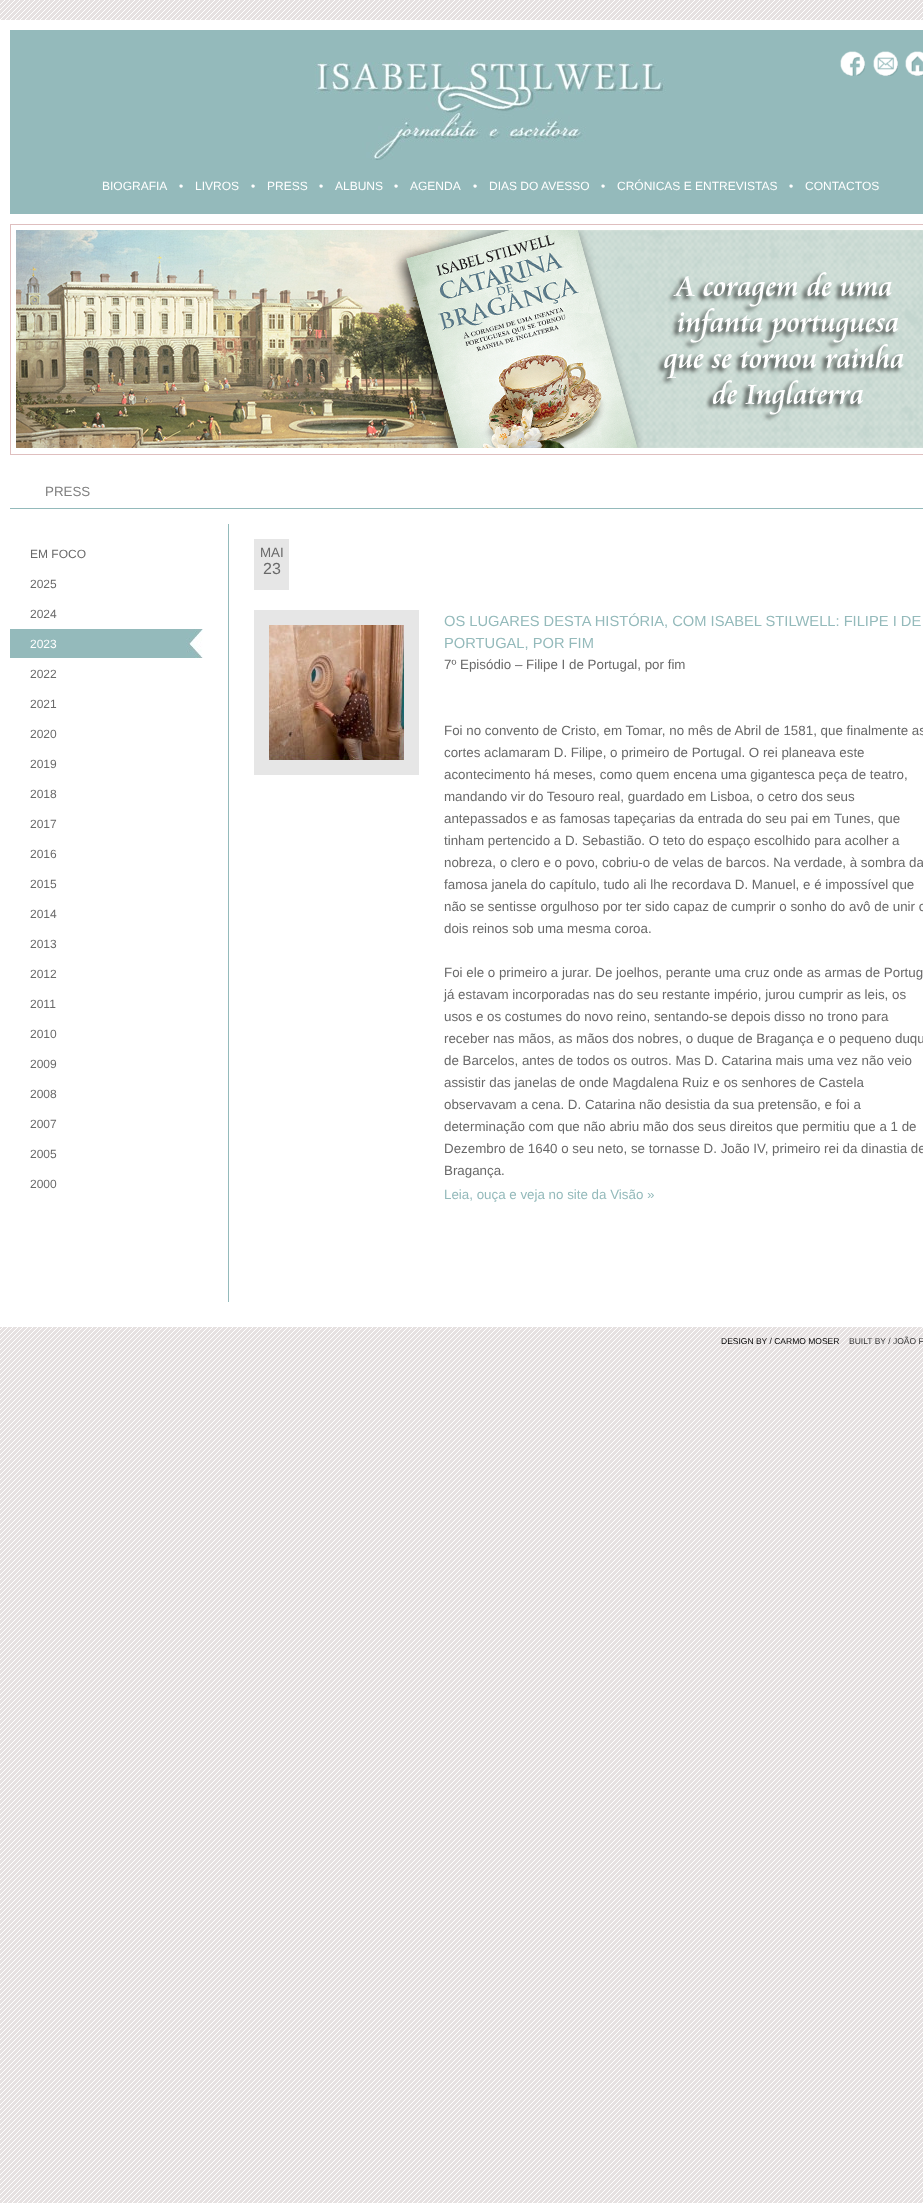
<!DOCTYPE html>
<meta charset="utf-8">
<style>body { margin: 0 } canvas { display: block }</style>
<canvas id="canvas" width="923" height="2203"></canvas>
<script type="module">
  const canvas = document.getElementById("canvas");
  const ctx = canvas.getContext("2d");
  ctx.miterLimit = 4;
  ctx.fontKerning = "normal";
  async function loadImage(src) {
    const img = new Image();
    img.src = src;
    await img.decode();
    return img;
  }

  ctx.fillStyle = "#ffffff";
  ctx.fillRect(0, 0, 923, 2203);
  ctx.drawImage(await loadImage("img1.png"), 0, 0, 923, 2203);
  ctx.fillRect(0, 20, 923, 1307);
  ctx.fillStyle = "#94babb";
  ctx.fillRect(10, 30, 913, 184);
  ctx.drawImage(await loadImage("img2.png"), 314, 62, 352, 98);
  ctx.drawImage(await loadImage("img3.png"), 840, 51, 25, 25);
  ctx.drawImage(await loadImage("img4.png"), 873, 51, 25, 25);
  ctx.drawImage(await loadImage("img5.png"), 905, 51, 18, 25);
  ctx.font = "12px Liberation Sans";
  ctx.fillStyle = "#ffffff";
  ctx.fillText("BIOGRAFIA", 102, 190);
  ctx.fillText("•", 179, 190);
  ctx.fillText("LIVROS", 195, 190);
  ctx.fillText("•", 251, 190);
  ctx.fillText("PRESS", 267, 190);
  ctx.fillText("•", 319, 190);
  ctx.fillText("ALBUNS", 335, 190);
  ctx.fillText("•", 394, 190);
  ctx.fillText("AGENDA", 410, 190);
  ctx.fillText("•", 473, 190);
  ctx.fillText("DIAS DO AVESSO", 489, 190);
  ctx.fillText("•", 601, 190);
  ctx.fillText("CRÓNICAS E ENTREVISTAS", 617, 190);
  ctx.fillText("•", 789, 190);
  ctx.fillText("CONTACTOS", 805, 190);
  ctx.strokeStyle = "#dfbfbf";
  ctx.strokeRect(10.5, 224.5, 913, 230);
  ctx.drawImage(await loadImage("img6.png"), 16, 230, 907, 218);
  ctx.font = "13.35px Liberation Sans";
  ctx.fillStyle = "#808080";
  ctx.fillText("PRESS", 45, 496);
  ctx.fillStyle = "#94babb";
  ctx.fillRect(10, 508, 913, 1);
  ctx.font = "12px Liberation Sans";
  ctx.fillStyle = "#696969";
  ctx.fillText("EM FOCO", 30, 558);
  ctx.fillText("2025", 30, 588);
  ctx.fillText("2024", 30, 618);
  ctx.drawImage(await loadImage("img7.png"), 10, 629, 193, 29);
  ctx.fillStyle = "#ffffff";
  ctx.fillText("2023", 30, 648);
  ctx.fillStyle = "#696969";
  ctx.fillText("2022", 30, 678);
  ctx.fillText("2021", 30, 708);
  ctx.fillText("2020", 30, 738);
  ctx.fillText("2019", 30, 768);
  ctx.fillText("2018", 30, 798);
  ctx.fillText("2017", 30, 828);
  ctx.fillText("2016", 30, 858);
  ctx.fillText("2015", 30, 888);
  ctx.fillText("2014", 30, 918);
  ctx.fillText("2013", 30, 948);
  ctx.fillText("2012", 30, 978);
  ctx.fillText("2011", 30, 1008);
  ctx.fillText("2010", 30, 1038);
  ctx.fillText("2009", 30, 1068);
  ctx.fillText("2008", 30, 1098);
  ctx.fillText("2007", 30, 1128);
  ctx.fillText("2005", 30, 1158);
  ctx.fillText("2000", 30, 1188);
  ctx.fillStyle = "#94babb";
  ctx.fillRect(228, 524, 1, 778);
  ctx.fillStyle = "#e6e6e6";
  ctx.fillRect(254, 539, 35, 51);
  ctx.font = "13.35px Liberation Sans";
  ctx.fillStyle = "#696969";
  ctx.fillText("MAI", 260, 557);
  ctx.font = "16px Liberation Sans";
  ctx.fillText("23", 263, 574);
  ctx.drawImage(await loadImage("img8.png"), 269, 625, 135, 135);
  ctx.strokeStyle = "#e6e6e6";
  ctx.lineWidth = 15;
  ctx.strokeRect(261.5, 617.5, 150, 150);
  ctx.font = "14.7px Liberation Sans";
  ctx.fillStyle = "#94babb";
  ctx.fillText("OS LUGARES DESTA HISTÓRIA, COM ISABEL STILWELL: FILIPE I DE", 444, 626);
  ctx.fillText("PORTUGAL, POR FIM", 444, 648);
  ctx.font = "13.35px Liberation Sans";
  ctx.fillStyle = "#696969";
  ctx.fillText("7º Episódio – Filipe I de Portugal, por fim", 444, 669);
  ctx.fillText("Foi no convento de Cristo, em Tomar, no mês de Abril de 1581, que finalmente as", 444, 735);
  ctx.fillText("cortes aclamaram D. Filipe, o primeiro de Portugal. O rei planeava este", 444, 757);
  ctx.fillText("acontecimento há meses, como quem encena uma gigantesca peça de teatro,", 444, 779);
  ctx.fillText("mandando vir do Tesouro real, guardado em Lisboa, o cetro dos seus", 444, 801);
  ctx.fillText("antepassados e as famosas tapeçarias da entrada do seu pai em Tunes, que", 444, 823);
  ctx.fillText("tinham pertencido a D. Sebastião. O teto do espaço escolhido para acolher a", 444, 845);
  ctx.fillText("nobreza, o clero e o povo, cobriu-o de velas de barcos. Na verdade, à sombra da", 444, 867);
  ctx.fillText("famosa janela do capítulo, tudo ali lhe recordava D. Manuel, e é impossível que", 444, 889);
  ctx.fillText("não se sentisse orgulhoso por ter sido capaz de cumprir o sonho do avô de unir o", 444, 911);
  ctx.fillText("dois reinos sob uma mesma coroa.", 444, 933);
  ctx.fillText("Foi ele o primeiro a jurar. De joelhos, perante uma cruz onde as armas de Portug", 444, 977);
  ctx.fillText("já estavam incorporadas nas do seu restante império, jurou cumprir as leis, os", 444, 999);
  ctx.fillText("usos e os costumes do novo reino, sentando-se depois disso no trono para", 444, 1021);
  ctx.fillText("receber nas mãos, as mãos dos nobres, o duque de Bragança e o pequeno duqu", 444, 1043);
  ctx.fillText("de Barcelos, antes de todos os outros. Mas D. Catarina mais uma vez não veio", 444, 1065);
  ctx.fillText("assistir das janelas de onde Magdalena Ruiz e os senhores de Castela", 444, 1087);
  ctx.fillText("observavam a cena. D. Catarina não desistia da sua pretensão, e foi a", 444, 1109);
  ctx.fillText("determinação com que não abriu mão dos seus direitos que permitiu que a 1 de", 444, 1131);
  ctx.fillText("Dezembro de 1640 o seu neto, se tornasse D. João IV, primeiro rei da dinastia de", 444, 1153);
  ctx.fillText("Bragança.", 444, 1175);
  ctx.fillStyle = "#94babb";
  ctx.fillText("Leia, ouça e veja no site da Visão »", 444, 1199);
  ctx.font = "8.5px Liberation Sans";
  ctx.fillStyle = "#000000";
  ctx.fillText("DESIGN BY / CARMO MOSER", 721, 1344);
  ctx.fillStyle = "#333333";
  ctx.fillText("BUILT BY / JOÃO F", 849, 1344);
</script>
